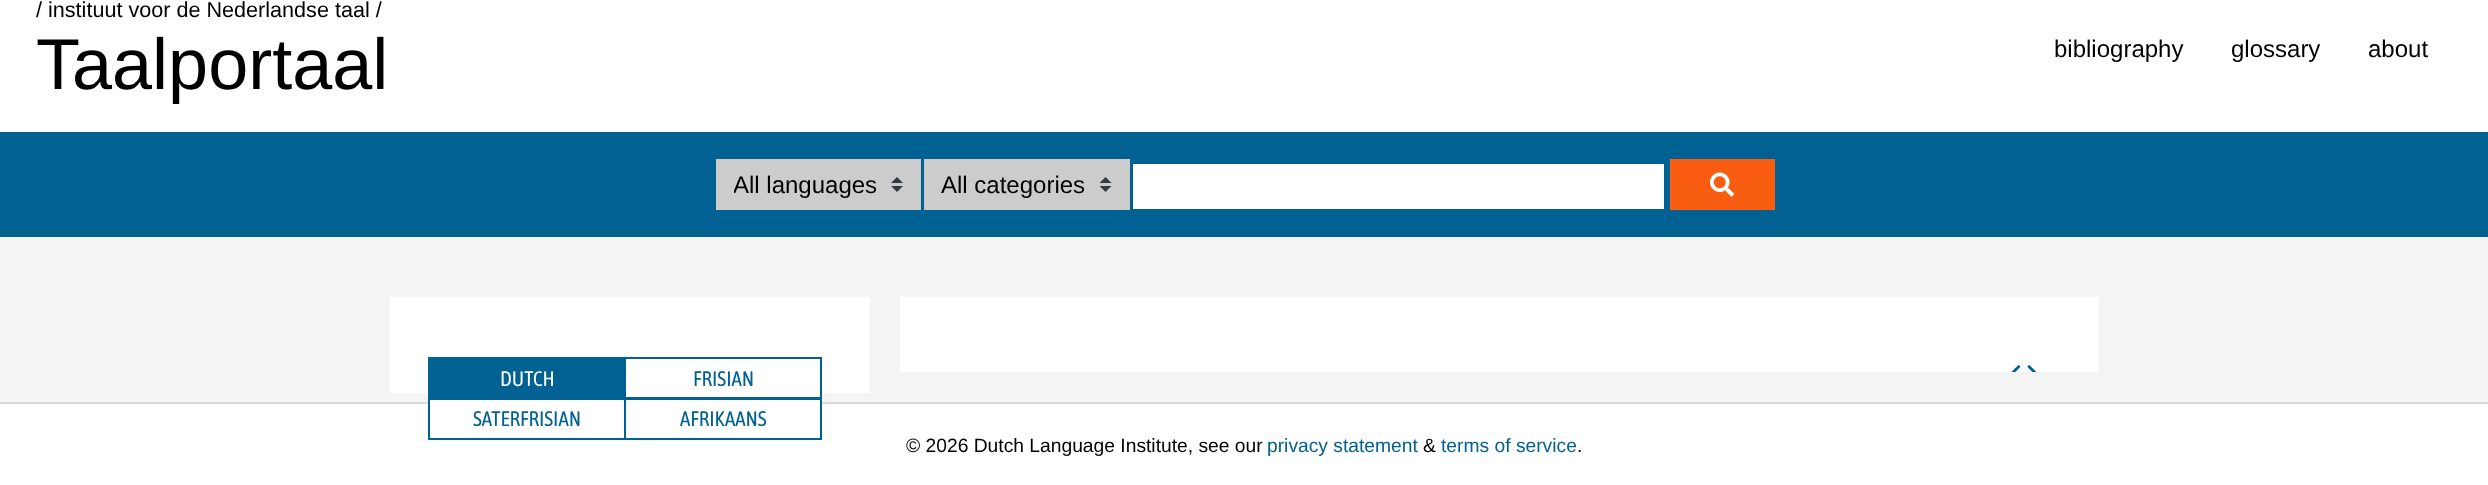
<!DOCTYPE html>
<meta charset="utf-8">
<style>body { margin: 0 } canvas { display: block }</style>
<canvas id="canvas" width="2488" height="485"></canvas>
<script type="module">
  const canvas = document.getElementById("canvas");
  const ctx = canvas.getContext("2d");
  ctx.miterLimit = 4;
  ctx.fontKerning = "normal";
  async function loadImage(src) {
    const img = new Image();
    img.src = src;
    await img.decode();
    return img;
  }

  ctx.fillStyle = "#ffffff";
  ctx.fillRect(0, 0, 2488, 485);
  ctx.font = "21.6px Liberation Sans";
  ctx.fillStyle = "#000000";
  ctx.fillText("/ instituut voor de Nederlandse taal /", 36, 17);
  ctx.font = "72px Liberation Sans";
  ctx.fillText("Taalportaal", 36, 89);
  ctx.font = "24px Liberation Sans";
  ctx.fillText("bibliography", 2054, 57);
  ctx.fillText("glossary", 2231, 57);
  ctx.fillText("about", 2368, 57);
  ctx.fillStyle = "#006192";
  ctx.fillRect(0, 132, 2488, 105);
  ctx.fillStyle = "#cccccc";
  ctx.fillRect(716, 159, 205, 51);
  ctx.drawImage(await loadImage("img1.png"), 891, 177, 12, 15);
  ctx.save();
  ctx.beginPath();
  ctx.rect(734, 173, 145, 25);
  ctx.clip();
  ctx.fillStyle = "#000000";
  ctx.fillText("All languages", 733, 193);
  ctx.restore();
  ctx.fillRect(924, 159, 206, 51);
  ctx.drawImage(await loadImage("img2.png"), 1100, 177, 12, 15);
  ctx.fillStyle = "#000000";
  ctx.fillText("All categories", 941, 193);
  ctx.fillStyle = "#ffffff";
  ctx.fillRect(1133, 164, 531, 45);
  ctx.fillStyle = "#f95d11";
  ctx.fillRect(1670, 159, 105, 51);
  ctx.drawImage(await loadImage("img3.png"), 1710, 172, 24, 25);
  ctx.fillStyle = "#f4f4f4";
  ctx.fillRect(0, 237, 2488, 165);
  ctx.fillStyle = "#ffffff";
  ctx.fillRect(900, 297, 1199, 75);
  ctx.drawImage(await loadImage("img4.png"), 2011, 365, 10, 7);
  ctx.drawImage(await loadImage("img5.png"), 2027, 365, 10, 7);
  ctx.fillRect(390, 297, 480, 96);
  ctx.fillStyle = "#006192";
  ctx.fillRect(428, 357, 196, 41);
  ctx.font = "21px Asap Condensed";
  ctx.fillStyle = "#ffffff";
  ctx.fillText("DUTCH", 500, 386);
  ctx.fillRect(626, 393, 194, 4);
  ctx.strokeStyle = "#006192";
  ctx.lineWidth = 2;
  ctx.strokeRect(625, 358, 196, 40);
  ctx.fillStyle = "#006192";
  ctx.fillText("FRISIAN", 693, 386);
  ctx.fillStyle = "#dbdada";
  ctx.fillRect(0, 402, 2488, 2);
  ctx.fillStyle = "#ffffff";
  ctx.fillRect(430, 400, 194, 4);
  ctx.strokeRect(429, 399, 196, 40);
  ctx.fillStyle = "#006192";
  ctx.fillText("SATERFRISIAN", 473, 426);
  ctx.fillStyle = "#ffffff";
  ctx.fillRect(626, 400, 194, 4);
  ctx.strokeRect(625, 399, 196, 40);
  ctx.fillStyle = "#006192";
  ctx.fillText("AFRIKAANS", 680, 426);
  ctx.font = "19.25px Liberation Sans";
  ctx.fillStyle = "#000000";
  ctx.fillText("© 2026 Dutch Language Institute, see our", 906, 452);
  ctx.fillStyle = "#006192";
  ctx.fillText("privacy statement", 1267, 452);
  ctx.fillStyle = "#000000";
  ctx.fillText("&", 1423, 452);
  ctx.fillStyle = "#006192";
  ctx.fillText("terms of service", 1441, 452);
  ctx.fillStyle = "#000000";
  ctx.fillText(".", 1577, 452);
</script>
